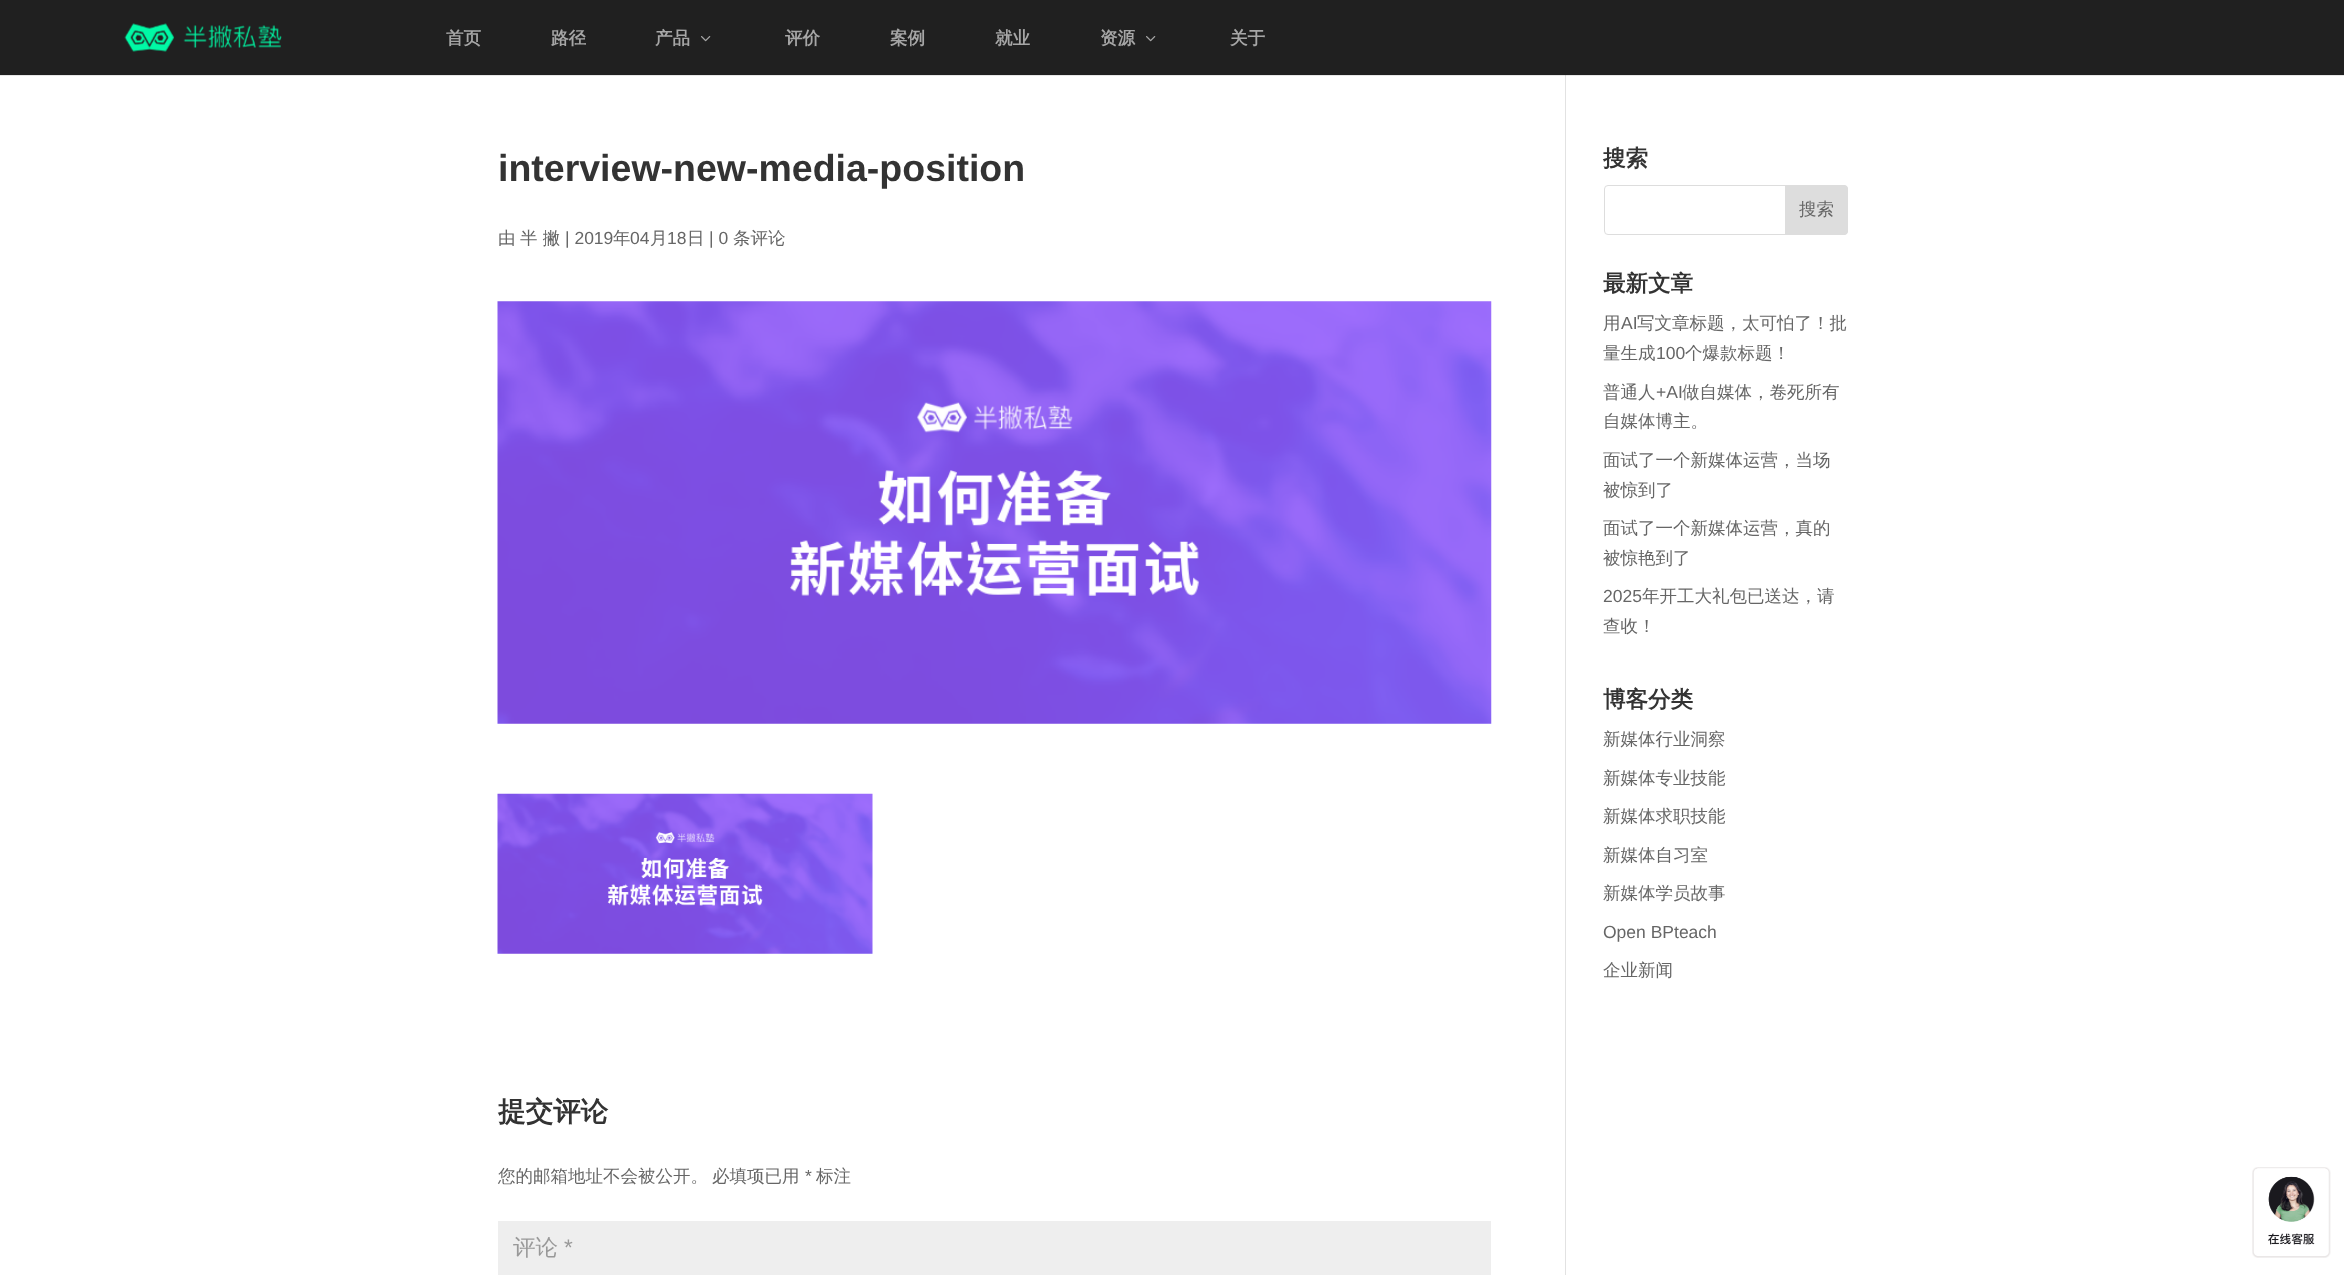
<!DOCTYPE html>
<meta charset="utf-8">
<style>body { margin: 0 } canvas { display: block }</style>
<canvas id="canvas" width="2344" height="1275"></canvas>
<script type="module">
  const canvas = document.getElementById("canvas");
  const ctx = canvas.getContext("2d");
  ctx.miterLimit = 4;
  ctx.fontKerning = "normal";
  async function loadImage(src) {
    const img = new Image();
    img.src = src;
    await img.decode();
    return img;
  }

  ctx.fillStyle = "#ffffff";
  ctx.fillRect(0, 0, 2344, 1275);
  ctx.fillStyle = "#e6e6e6";
  ctx.fillRect(0, 75, 2344, 1);
  ctx.fillStyle = "#202020";
  ctx.fillRect(0, 0, 2344, 75);
  ctx.drawImage(await loadImage("img1.png"), 124, 23, 158, 29);
  ctx.font = "bold 17.5px WenQuanYi Zen Hei";
  ctx.fillStyle = "#a6a6a6";
  ctx.fillText("首页", 446, 44);
  ctx.fillText("路径", 551, 44);
  ctx.fillText("产品", 655, 44);
  ctx.drawImage(await loadImage("img2.png"), 701, 36, 10, 6);
  ctx.fillText("评价", 785, 44);
  ctx.fillText("案例", 890, 44);
  ctx.fillText("就业", 995, 44);
  ctx.fillText("资源", 1100, 44);
  ctx.drawImage(await loadImage("img2.png"), 1146, 36, 10, 6);
  ctx.fillText("关于", 1230, 44);
  ctx.fillStyle = "#e2e2e2";
  ctx.fillRect(1565, 75, 1, 1200);
  ctx.fillStyle = "#cbcbcb";
  ctx.fillRect(1565, 75, 1, 1);
  ctx.font = "bold 37.5px Liberation Sans";
  ctx.fillStyle = "#333333";
  ctx.fillText("interview-new-media-position", 498, 181);
  ctx.font = "500 17.5px WenQuanYi Zen Hei";
  ctx.fillStyle = "#666666";
  ctx.fillText("由", 498, 244);
  ctx.fillText("半 撇", 520, 244);
  ctx.font = "17.5px Liberation Sans";
  ctx.fillText("| 2019", 565, 244);
  ctx.font = "500 17.5px WenQuanYi Zen Hei";
  ctx.fillText("年", 613, 244);
  ctx.font = "17.5px Liberation Sans";
  ctx.fillText("04", 630, 244);
  ctx.font = "500 17.5px WenQuanYi Zen Hei";
  ctx.fillText("月", 650, 244);
  ctx.font = "17.5px Liberation Sans";
  ctx.fillText("18", 667, 244);
  ctx.font = "500 17.5px WenQuanYi Zen Hei";
  ctx.fillText("日", 687, 244);
  ctx.font = "17.5px Liberation Sans";
  ctx.fillText("| 0", 709, 244);
  ctx.font = "500 17.5px WenQuanYi Zen Hei";
  ctx.fillText("条评论", 733, 244);
  ctx.drawImage(await loadImage("img3.png"), 497, 301, 995, 423);
  ctx.drawImage(await loadImage("img4.png"), 497, 793, 376, 161);
  ctx.font = "bold 27.5px WenQuanYi Zen Hei";
  ctx.fillStyle = "#333333";
  ctx.fillText("提交评论", 498, 1121);
  ctx.font = "500 17.5px WenQuanYi Zen Hei";
  ctx.fillStyle = "#666666";
  ctx.fillText("您的邮箱地址不会被公开。", 498, 1182);
  ctx.fillText("必填项已用", 712, 1182);
  ctx.font = "17.5px Liberation Sans";
  ctx.fillText("*", 805, 1182);
  ctx.font = "500 17.5px WenQuanYi Zen Hei";
  ctx.fillText("标注", 816, 1182);
  ctx.fillStyle = "#eeeeee";
  ctx.fillRect(498, 1221, 993, 54);
  ctx.font = "500 22.5px WenQuanYi Zen Hei";
  ctx.fillStyle = "#999999";
  ctx.fillText("评论", 513, 1255);
  ctx.font = "22.5px Liberation Sans";
  ctx.fillText("*", 564, 1255);
  ctx.font = "bold 22.5px WenQuanYi Zen Hei";
  ctx.fillStyle = "#333333";
  ctx.fillText("搜索", 1603, 166);
  ctx.beginPath();
  ctx.roundRect(1604.5, 185.5, 243, 49, 3.5);
  ctx.strokeStyle = "#dddddd";
  ctx.stroke();
  ctx.fillStyle = "#dddddd";
  ctx.beginPath();
  ctx.roundRect(1785.5, 185.5, 62, 49, [0, 3.5, 3.5, 0]);
  ctx.fill();
  ctx.stroke();
  ctx.font = "500 17.5px WenQuanYi Zen Hei";
  ctx.fillStyle = "#666666";
  ctx.fillText("搜索", 1799, 215);
  ctx.font = "bold 22.5px WenQuanYi Zen Hei";
  ctx.fillStyle = "#333333";
  ctx.fillText("最新文章", 1603, 291);
  ctx.font = "500 17.5px WenQuanYi Zen Hei";
  ctx.fillStyle = "#666666";
  ctx.fillText("用", 1603, 329);
  ctx.font = "17.5px Liberation Sans";
  ctx.fillText("AI", 1621, 329);
  ctx.font = "500 17.5px WenQuanYi Zen Hei";
  ctx.fillText("写文章标题，太可怕了！批", 1637, 329);
  ctx.fillText("量生成", 1603, 359);
  ctx.font = "17.5px Liberation Sans";
  ctx.fillText("100", 1656, 359);
  ctx.font = "500 17.5px WenQuanYi Zen Hei";
  ctx.fillText("个爆款标题！", 1685, 359);
  ctx.fillText("普通人", 1603, 398);
  ctx.font = "17.5px Liberation Sans";
  ctx.fillText("+AI", 1656, 398);
  ctx.font = "500 17.5px WenQuanYi Zen Hei";
  ctx.fillText("做自媒体，卷死所有", 1682, 398);
  ctx.fillText("自媒体博主。", 1603, 427);
  ctx.fillText("面试了一个新媒体运营，当场", 1603, 466);
  ctx.fillText("被惊到了", 1603, 496);
  ctx.fillText("面试了一个新媒体运营，真的", 1603, 534);
  ctx.fillText("被惊艳到了", 1603, 564);
  ctx.font = "17.5px Liberation Sans";
  ctx.fillText("2025", 1603, 602);
  ctx.font = "500 17.5px WenQuanYi Zen Hei";
  ctx.fillText("年开工大礼包已送达，请", 1642, 602);
  ctx.fillText("查收！", 1603, 632);
  ctx.font = "bold 22.5px WenQuanYi Zen Hei";
  ctx.fillStyle = "#333333";
  ctx.fillText("博客分类", 1603, 707);
  ctx.font = "500 17.5px WenQuanYi Zen Hei";
  ctx.fillStyle = "#666666";
  ctx.fillText("新媒体行业洞察", 1603, 745);
  ctx.fillText("新媒体专业技能", 1603, 784);
  ctx.fillText("新媒体求职技能", 1603, 822);
  ctx.fillText("新媒体自习室", 1603, 861);
  ctx.fillText("新媒体学员故事", 1603, 899);
  ctx.font = "17.5px Liberation Sans";
  ctx.fillText("Open BPteach", 1603, 938);
  ctx.font = "500 17.5px WenQuanYi Zen Hei";
  ctx.fillText("企业新闻", 1603, 976);
  ctx.drawImage(await loadImage("img5.png"), 2252, 1167, 79, 91);
</script>
